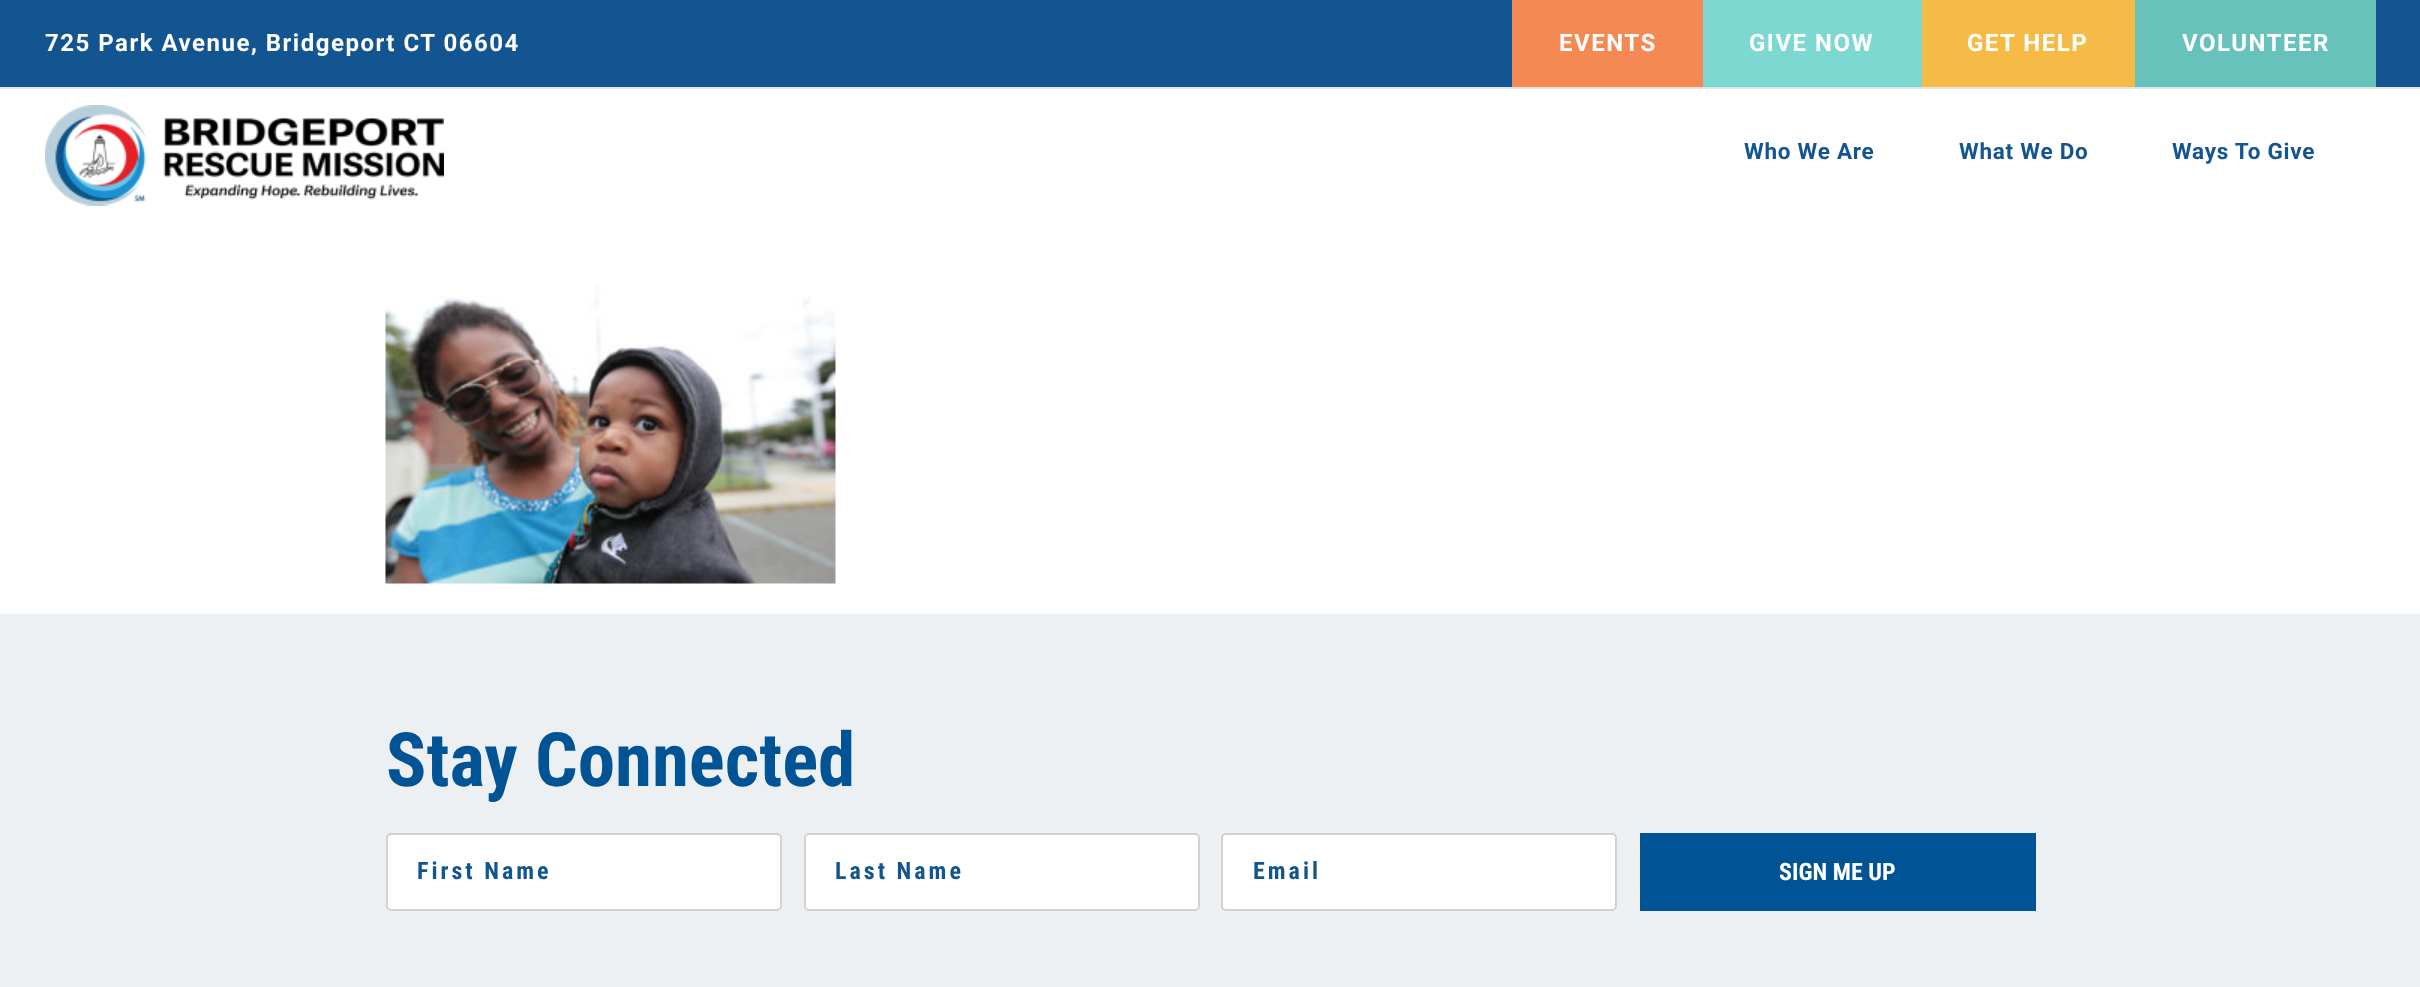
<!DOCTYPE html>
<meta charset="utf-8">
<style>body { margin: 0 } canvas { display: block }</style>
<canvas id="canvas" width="2420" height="987"></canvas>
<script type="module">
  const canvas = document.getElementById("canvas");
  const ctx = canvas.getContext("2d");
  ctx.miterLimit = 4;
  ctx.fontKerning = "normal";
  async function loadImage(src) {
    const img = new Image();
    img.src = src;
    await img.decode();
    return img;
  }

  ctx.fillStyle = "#ffffff";
  ctx.fillRect(0, 0, 2420, 987);
  ctx.fillStyle = "#135590";
  ctx.fillRect(0, 0, 2420, 87);
  ctx.fillStyle = "#e5e5e5";
  ctx.fillRect(0, 87, 2420, 2);
  ctx.letterSpacing = "1.5px";
  ctx.font = "bold 24px Roboto";
  ctx.fillStyle = "#ffffff";
  ctx.fillText("725 Park Avenue, Bridgeport CT 06604", 45, 51);
  ctx.fillStyle = "#f58953";
  ctx.fillRect(1512, 0, 191, 87);
  ctx.fillStyle = "#ffffff";
  ctx.fillText("EVENTS", 1559, 51);
  ctx.fillStyle = "#7dd8d2";
  ctx.fillRect(1703, 0, 219, 87);
  ctx.fillStyle = "#ffffff";
  ctx.fillText("GIVE NOW", 1749, 51);
  ctx.fillStyle = "#f6bb47";
  ctx.fillRect(1922, 0, 213, 87);
  ctx.fillStyle = "#ffffff";
  ctx.fillText("GET HELP", 1967, 51);
  ctx.fillStyle = "#67c2bb";
  ctx.fillRect(2135, 0, 241, 87);
  ctx.fillStyle = "#ffffff";
  ctx.fillText("VOLUNTEER", 2182, 51);
  ctx.drawImage(await loadImage("img1.png"), 45, 105, 399, 101);
  ctx.letterSpacing = "0.75px";
  ctx.font = "bold 22.5px Roboto";
  ctx.fillStyle = "#135590";
  ctx.fillText("Who We Are", 1744, 159);
  ctx.fillText("What We Do", 1959, 159);
  ctx.fillText("Ways To Give", 2172, 159);
  ctx.drawImage(await loadImage("img2.png"), 385, 284, 451, 300);
  ctx.fillStyle = "#ecf0f3";
  ctx.fillRect(0, 614, 2420, 373);
  ctx.letterSpacing = "0px";
  ctx.font = "bold 75px Roboto Condensed";
  ctx.fillStyle = "#005394";
  ctx.fillText("Stay Connected", 386, 786);
  ctx.fillStyle = "#ffffff";
  ctx.beginPath();
  ctx.roundRect(387, 834, 394, 76, 4);
  ctx.fill();
  ctx.strokeStyle = "#d2d2d2";
  ctx.lineWidth = 2;
  ctx.stroke();
  ctx.letterSpacing = "3px";
  ctx.font = "bold 24px Roboto Condensed";
  ctx.fillStyle = "#135590";
  ctx.fillText("First Name", 417, 879);
  ctx.fillStyle = "#ffffff";
  ctx.beginPath();
  ctx.roundRect(805, 834, 394, 76, 4);
  ctx.fill();
  ctx.stroke();
  ctx.fillStyle = "#135590";
  ctx.fillText("Last Name", 835, 879);
  ctx.fillStyle = "#ffffff";
  ctx.beginPath();
  ctx.roundRect(1222, 834, 394, 76, 4);
  ctx.fill();
  ctx.stroke();
  ctx.fillStyle = "#135590";
  ctx.fillText("Email", 1253, 879);
  ctx.fillStyle = "#005394";
  ctx.fillRect(1640, 833, 396, 78);
  ctx.letterSpacing = "0px";
  ctx.fillStyle = "#ffffff";
  ctx.fillText("SIGN ME UP", 1779, 880);
</script>
